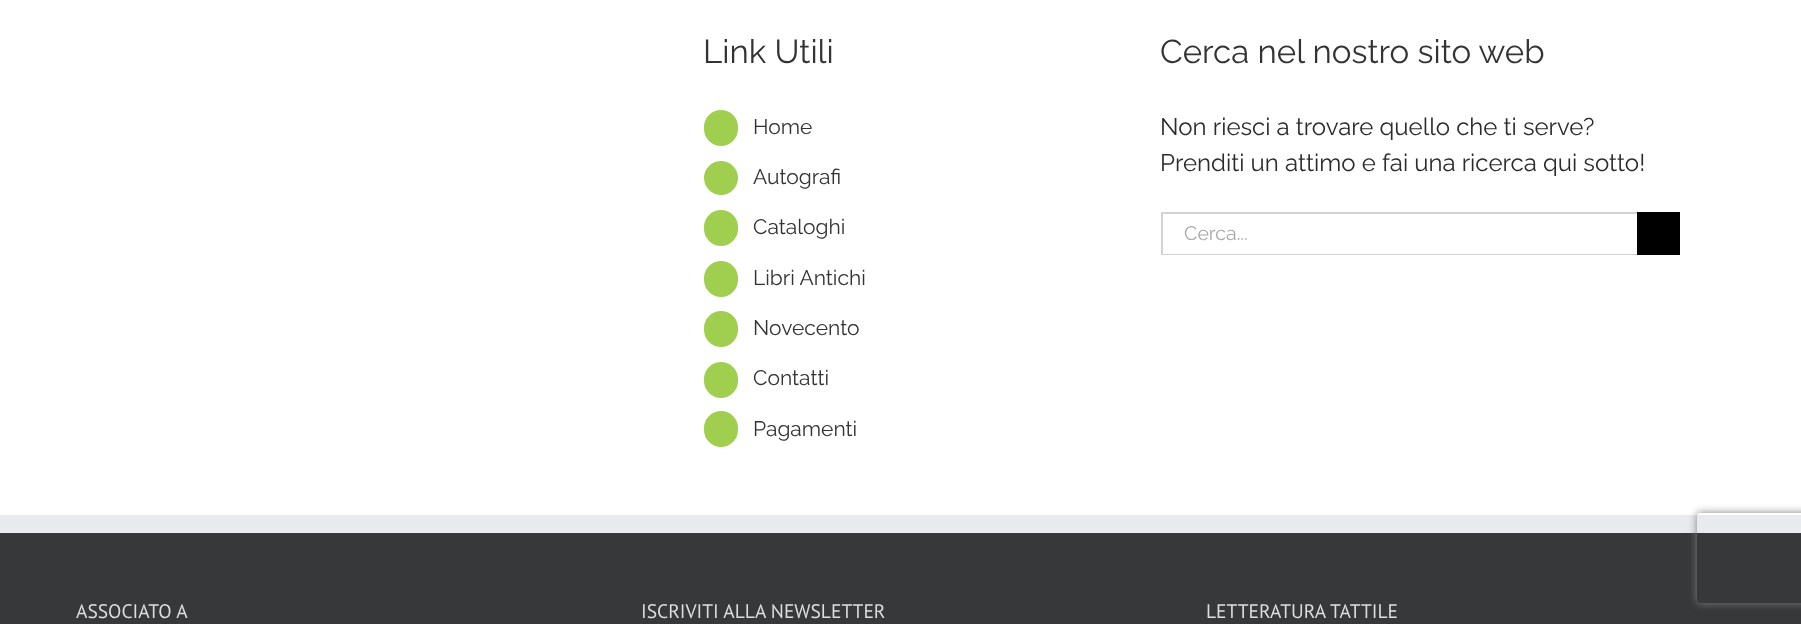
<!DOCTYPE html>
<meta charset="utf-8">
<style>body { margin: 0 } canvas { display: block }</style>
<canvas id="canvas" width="1801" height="624"></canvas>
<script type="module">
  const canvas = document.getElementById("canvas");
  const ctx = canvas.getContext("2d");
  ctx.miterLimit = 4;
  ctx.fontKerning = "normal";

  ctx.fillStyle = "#ffffff";
  ctx.fillRect(0, 0, 1801, 624);
  ctx.font = "33px Raleway";
  ctx.fillStyle = "#333333";
  ctx.fillText("Link Utili", 703, 63);
  ctx.fillStyle = "#a0ce4e";
  ctx.beginPath();
  ctx.roundRect(704, 110, 34, 36, 17);
  ctx.fill();
  ctx.font = "21px Raleway";
  ctx.fillStyle = "#333333";
  ctx.fillText("Home", 753, 134);
  ctx.fillStyle = "#a0ce4e";
  ctx.beginPath();
  ctx.arc(721, 178, 17, 0, Math.PI * 2);
  ctx.fill();
  ctx.fillStyle = "#333333";
  ctx.fillText("Autografi", 753, 184);
  ctx.fillStyle = "#a0ce4e";
  ctx.beginPath();
  ctx.roundRect(704, 210, 34, 36, 17);
  ctx.fill();
  ctx.fillStyle = "#333333";
  ctx.fillText("Cataloghi", 753, 234);
  ctx.fillStyle = "#a0ce4e";
  ctx.beginPath();
  ctx.roundRect(704, 261, 34, 36, 17);
  ctx.fill();
  ctx.fillStyle = "#333333";
  ctx.fillText("Libri Antichi", 753, 285);
  ctx.fillStyle = "#a0ce4e";
  ctx.beginPath();
  ctx.roundRect(704, 311, 34, 36, 17);
  ctx.fill();
  ctx.fillStyle = "#333333";
  ctx.fillText("Novecento", 753, 335);
  ctx.fillStyle = "#a0ce4e";
  ctx.beginPath();
  ctx.roundRect(704, 362, 34, 36, 17);
  ctx.fill();
  ctx.fillStyle = "#333333";
  ctx.fillText("Contatti", 753, 385);
  ctx.fillStyle = "#a0ce4e";
  ctx.beginPath();
  ctx.roundRect(704, 411, 34, 36, 17);
  ctx.fill();
  ctx.fillStyle = "#333333";
  ctx.fillText("Pagamenti", 753, 436);
  ctx.font = "33px Raleway";
  ctx.fillText("Cerca nel nostro sito web", 1160, 63);
  ctx.font = "24px Raleway";
  ctx.fillStyle = "#2b2b2b";
  ctx.fillText("Non riesci a trovare quello che ti serve?", 1160, 135);
  ctx.fillText("Prenditi un attimo e fai una ricerca qui sotto!", 1160, 171);
  ctx.fillStyle = "#d2d2d2";
  ctx.fillRect(1161, 212, 476, 2);
  ctx.fillRect(1161, 254, 476, 1);
  ctx.fillRect(1161, 212, 2, 43);
  ctx.font = "19.5px Raleway";
  ctx.fillStyle = "#aaa9a9";
  ctx.fillText("Cerca...", 1184, 240);
  ctx.fillStyle = "#000000";
  ctx.fillRect(1637, 212, 43, 43);
  ctx.fillStyle = "#363839";
  ctx.fillRect(0, 533, 1801, 91);
  ctx.fillStyle = "#e9eaee";
  ctx.fillRect(0, 515, 1801, 18);
  ctx.font = "19.5px PT Sans";
  ctx.fillStyle = "#dddddd";
  ctx.fillText("ASSOCIATO A", 76, 618);
  ctx.fillText("ISCRIVITI ALLA NEWSLETTER", 641, 618);
  ctx.fillText("LETTERATURA TATTILE", 1206, 618);
  ctx.save();
  ctx.beginPath();
  ctx.moveTo(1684, 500);
  ctx.lineTo(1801, 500);
  ctx.lineTo(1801, 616);
  ctx.lineTo(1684, 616);
  ctx.closePath();
  ctx.moveTo(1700, 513);
  ctx.lineTo(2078, 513);
  ctx.bezierCurveTo(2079.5, 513, 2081, 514.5, 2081, 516);
  ctx.lineTo(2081, 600);
  ctx.bezierCurveTo(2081, 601.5, 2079.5, 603, 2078, 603);
  ctx.lineTo(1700, 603);
  ctx.bezierCurveTo(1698.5, 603, 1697, 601.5, 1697, 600);
  ctx.lineTo(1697, 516);
  ctx.bezierCurveTo(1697, 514.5, 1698.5, 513, 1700, 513);
  ctx.closePath();
  ctx.clip("evenodd");
  ctx.fillStyle = "#808080";
  ctx.filter = "blur(4px)";
  ctx.beginPath();
  ctx.roundRect(1697, 513, 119, 90, 3);
  ctx.fill();
  ctx.filter = "none";
  ctx.restore();
</script>
